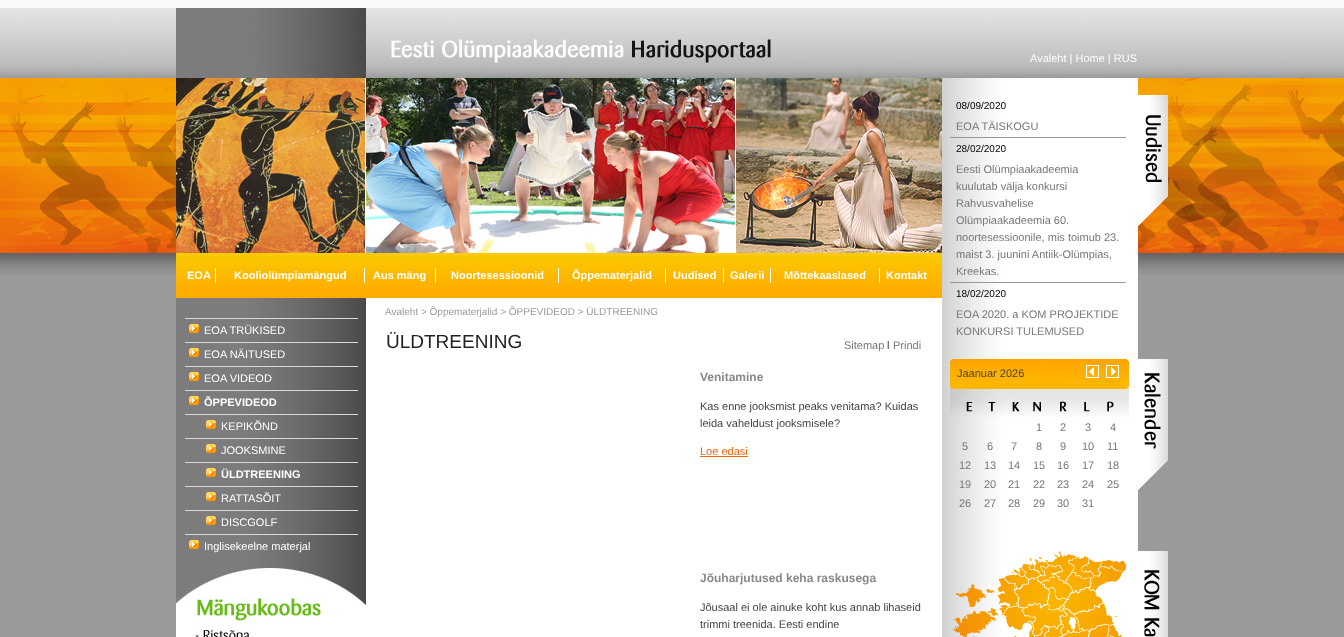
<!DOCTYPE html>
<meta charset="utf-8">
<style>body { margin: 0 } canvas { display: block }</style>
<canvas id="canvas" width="1344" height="637"></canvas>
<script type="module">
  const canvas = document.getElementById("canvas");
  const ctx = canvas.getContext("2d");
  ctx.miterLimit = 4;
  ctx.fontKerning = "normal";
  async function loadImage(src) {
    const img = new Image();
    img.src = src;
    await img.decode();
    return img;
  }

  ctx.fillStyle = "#999a9a";
  ctx.fillRect(0, 0, 1344, 637);
  ctx.drawImage(await loadImage("img1.png"), 0, 0, 1344, 275);
  ctx.drawImage(await loadImage("img2.png"), 176, 8, 595, 70);
  ctx.font = "11px Liberation Sans";
  ctx.fillStyle = "#ffffff";
  ctx.fillText("Avaleht | Home | RUS", 1030, 62);
  ctx.fillRect(366, 298, 576, 339);
  ctx.drawImage(await loadImage("img3.png"), 176, 298, 190, 269);
  ctx.drawImage(await loadImage("img4.png"), 176, 78, 766, 175);
  ctx.drawImage(await loadImage("img5.png"), 176, 253, 766, 45);
  ctx.font = "bold 11px Liberation Sans";
  ctx.fillText("EOA", 187, 279);
  ctx.fillRect(215, 268, 1, 15);
  ctx.fillText("Kooliolümpiamängud", 234, 279);
  ctx.fillRect(364, 268, 1, 15);
  ctx.fillText("Aus mäng", 373, 279);
  ctx.fillRect(435, 268, 1, 15);
  ctx.fillText("Noortesessioonid", 451, 279);
  ctx.fillRect(558, 268, 1, 15);
  ctx.fillText("Õppematerjalid", 572, 279);
  ctx.fillRect(665, 268, 1, 15);
  ctx.fillText("Uudised", 673, 279);
  ctx.fillRect(723, 268, 1, 15);
  ctx.fillText("Galerii", 730, 279);
  ctx.fillRect(770, 268, 1, 15);
  ctx.fillText("Mõttekaaslased", 784, 279);
  ctx.fillRect(879, 268, 1, 15);
  ctx.fillText("Kontakt", 886, 279);
  ctx.fillStyle = "#d8d8d8";
  ctx.fillRect(185, 318, 173, 1);
  ctx.drawImage(await loadImage("img6.png"), 189, 324, 10, 9);
  ctx.font = "11px Liberation Sans";
  ctx.fillStyle = "#ffffff";
  ctx.fillText("EOA TRÜKISED", 204, 334);
  ctx.fillStyle = "#d8d8d8";
  ctx.fillRect(185, 342, 173, 1);
  ctx.drawImage(await loadImage("img6.png"), 189, 348, 10, 9);
  ctx.fillStyle = "#ffffff";
  ctx.fillText("EOA NÄITUSED", 204, 358);
  ctx.fillStyle = "#d8d8d8";
  ctx.fillRect(185, 366, 173, 1);
  ctx.drawImage(await loadImage("img6.png"), 189, 372, 10, 9);
  ctx.fillStyle = "#ffffff";
  ctx.fillText("EOA VIDEOD", 204, 382);
  ctx.fillStyle = "#d8d8d8";
  ctx.fillRect(185, 390, 173, 1);
  ctx.drawImage(await loadImage("img6.png"), 189, 396, 10, 9);
  ctx.font = "bold 11px Liberation Sans";
  ctx.fillStyle = "#ffffff";
  ctx.fillText("ÕPPEVIDEOD", 204, 406);
  ctx.fillStyle = "#d8d8d8";
  ctx.fillRect(185, 414, 173, 1);
  ctx.drawImage(await loadImage("img6.png"), 206, 420, 10, 9);
  ctx.font = "11px Liberation Sans";
  ctx.fillStyle = "#ffffff";
  ctx.fillText("KEPIKÕND", 221, 430);
  ctx.fillStyle = "#d8d8d8";
  ctx.fillRect(185, 438, 173, 1);
  ctx.drawImage(await loadImage("img6.png"), 206, 444, 10, 9);
  ctx.fillStyle = "#ffffff";
  ctx.fillText("JOOKSMINE", 221, 454);
  ctx.fillStyle = "#d8d8d8";
  ctx.fillRect(185, 462, 173, 1);
  ctx.drawImage(await loadImage("img6.png"), 206, 468, 10, 9);
  ctx.font = "bold 11px Liberation Sans";
  ctx.fillStyle = "#ffffff";
  ctx.fillText("ÜLDTREENING", 221, 478);
  ctx.fillStyle = "#d8d8d8";
  ctx.fillRect(185, 486, 173, 1);
  ctx.drawImage(await loadImage("img6.png"), 206, 492, 10, 9);
  ctx.font = "11px Liberation Sans";
  ctx.fillStyle = "#ffffff";
  ctx.fillText("RATTASÕIT", 221, 502);
  ctx.fillStyle = "#d8d8d8";
  ctx.fillRect(185, 510, 173, 1);
  ctx.drawImage(await loadImage("img6.png"), 206, 516, 10, 9);
  ctx.fillStyle = "#ffffff";
  ctx.fillText("DISCGOLF", 221, 526);
  ctx.fillStyle = "#d8d8d8";
  ctx.fillRect(185, 534, 173, 1);
  ctx.drawImage(await loadImage("img6.png"), 189, 540, 10, 9);
  ctx.fillStyle = "#ffffff";
  ctx.fillText("Inglisekeelne materjal", 204, 550);
  ctx.drawImage(await loadImage("img7.png"), 176, 567, 190, 70);
  ctx.font = "10px Liberation Sans";
  ctx.fillStyle = "#999999";
  ctx.fillText("Avaleht > Õppematerjalid > ÕPPEVIDEOD > ÜLDTREENING", 385, 315);
  ctx.font = "19px Liberation Sans";
  ctx.fillStyle = "#222222";
  ctx.fillText("ÜLDTREENING", 386, 348);
  ctx.font = "11px Liberation Sans";
  ctx.fillStyle = "#777777";
  ctx.fillText("Sitemap", 844, 349);
  ctx.fillStyle = "#444444";
  ctx.fillText("l", 887, 349);
  ctx.fillStyle = "#777777";
  ctx.fillText("Prindi", 893, 349);
  ctx.font = "bold 12px Liberation Sans";
  ctx.fillStyle = "#888888";
  ctx.fillText("Venitamine", 700, 381);
  ctx.font = "11px Liberation Sans";
  ctx.fillStyle = "#444444";
  ctx.fillText("Kas enne jooksmist peaks venitama? Kuidas", 700, 410);
  ctx.fillText("leida vaheldust jooksmisele?", 700, 427);
  ctx.fillStyle = "#ec640f";
  ctx.fillText("Loe edasi", 700, 455);
  ctx.fillRect(700, 456, 48, 1);
  ctx.font = "bold 12px Liberation Sans";
  ctx.fillStyle = "#888888";
  ctx.fillText("Jõuharjutused keha raskusega", 700, 582);
  ctx.font = "11px Liberation Sans";
  ctx.fillStyle = "#444444";
  ctx.fillText("Jõusaal ei ole ainuke koht kus annab lihaseid", 700, 611);
  ctx.fillText("trimmi treenida. Eesti endine", 700, 628);
  ctx.drawImage(await loadImage("img8.png"), 942, 78, 196, 559);
  ctx.font = "10px Liberation Sans";
  ctx.fillStyle = "#000000";
  ctx.fillText("08/09/2020", 956, 109);
  ctx.font = "11px Liberation Sans";
  ctx.fillStyle = "#777777";
  ctx.fillText("EOA TÄISKOGU", 956, 130);
  ctx.fillStyle = "#92989d";
  ctx.fillRect(950, 137, 176, 1);
  ctx.font = "10px Liberation Sans";
  ctx.fillStyle = "#000000";
  ctx.fillText("28/02/2020", 956, 152);
  ctx.font = "11px Liberation Sans";
  ctx.fillStyle = "#777777";
  ctx.fillText("Eesti Olümpiaakadeemia", 956, 173);
  ctx.fillText("kuulutab välja konkursi", 956, 190);
  ctx.fillText("Rahvusvahelise", 956, 207);
  ctx.fillText("Olümpiaakadeemia 60.", 956, 224);
  ctx.fillText("noortesessioonile, mis toimub 23.", 956, 241);
  ctx.fillText("maist 3. juunini Antiik-Olümpias,", 956, 258);
  ctx.fillText("Kreekas.", 956, 275);
  ctx.fillStyle = "#92989d";
  ctx.fillRect(950, 282, 176, 1);
  ctx.font = "10px Liberation Sans";
  ctx.fillStyle = "#000000";
  ctx.fillText("18/02/2020", 956, 297);
  ctx.font = "11px Liberation Sans";
  ctx.fillStyle = "#777777";
  ctx.fillText("EOA 2020. a KOM PROJEKTIDE", 956, 318);
  ctx.fillText("KONKURSI TULEMUSED", 956, 335);
  ctx.drawImage(await loadImage("img9.png"), 1138, 95, 30, 131);
  ctx.drawImage(await loadImage("img10.png"), 950, 359, 179, 58);
  ctx.fillStyle = "#444444";
  ctx.fillText("Jaanuar 2026", 957, 377);
  ctx.drawImage(await loadImage("img11.png"), 1086, 365, 13, 13);
  ctx.drawImage(await loadImage("img12.png"), 1106, 365, 13, 13);
  ctx.fillStyle = "#777777";
  ctx.fillText("1", 1036, 431);
  ctx.fillText("2", 1060, 431);
  ctx.fillText("3", 1085, 431);
  ctx.fillText("4", 1110, 431);
  ctx.fillText("5", 962, 450);
  ctx.fillText("6", 987, 450);
  ctx.fillText("7", 1011, 450);
  ctx.fillText("8", 1036, 450);
  ctx.fillText("9", 1060, 450);
  ctx.fillText("10", 1082, 450);
  ctx.fillText("11", 1107, 450);
  ctx.fillText("12", 959, 469);
  ctx.fillText("13", 984, 469);
  ctx.fillText("14", 1008, 469);
  ctx.fillText("15", 1033, 469);
  ctx.fillText("16", 1057, 469);
  ctx.fillText("17", 1082, 469);
  ctx.fillText("18", 1107, 469);
  ctx.fillText("19", 959, 488);
  ctx.fillText("20", 984, 488);
  ctx.fillText("21", 1008, 488);
  ctx.fillText("22", 1033, 488);
  ctx.fillText("23", 1057, 488);
  ctx.fillText("24", 1082, 488);
  ctx.fillText("25", 1107, 488);
  ctx.fillText("26", 959, 507);
  ctx.fillText("27", 984, 507);
  ctx.fillText("28", 1008, 507);
  ctx.fillText("29", 1033, 507);
  ctx.fillText("30", 1057, 507);
  ctx.fillText("31", 1082, 507);
  ctx.drawImage(await loadImage("img13.png"), 1138, 359, 30, 131);
  ctx.drawImage(await loadImage("img14.png"), 953, 551, 173, 86);
  ctx.drawImage(await loadImage("img15.png"), 1138, 551, 30, 86);
</script>
